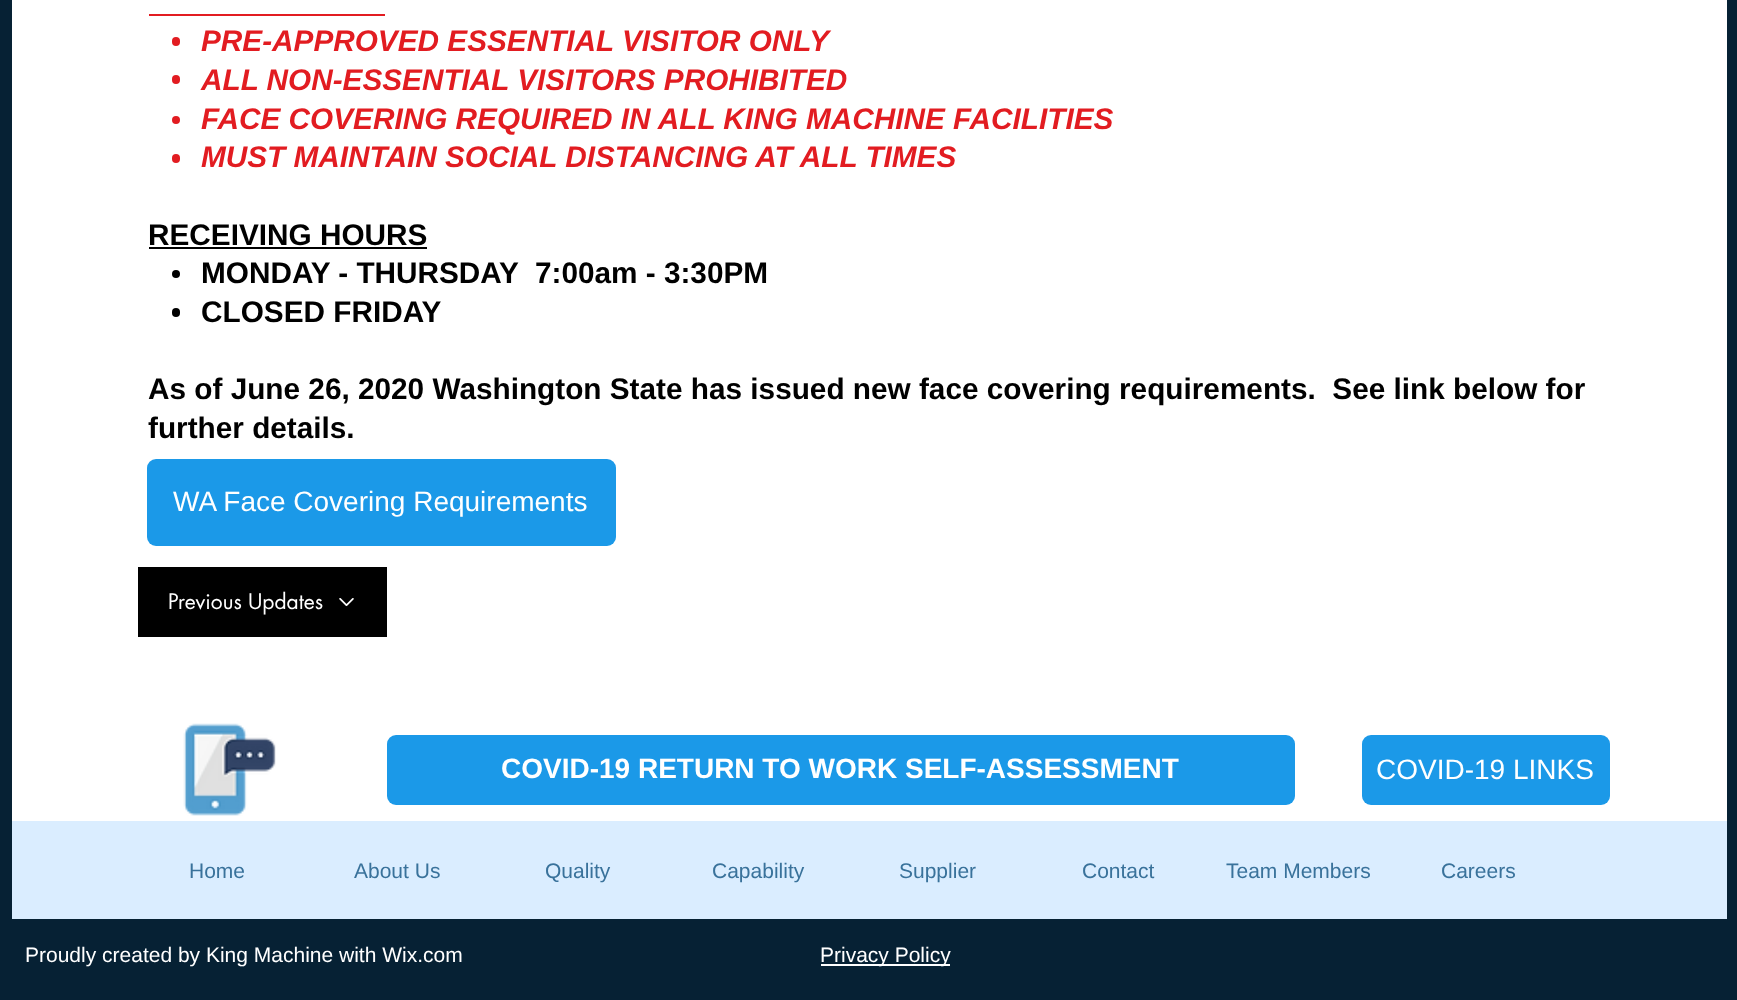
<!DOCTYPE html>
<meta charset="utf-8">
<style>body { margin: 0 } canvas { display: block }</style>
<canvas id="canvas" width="1737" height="1000"></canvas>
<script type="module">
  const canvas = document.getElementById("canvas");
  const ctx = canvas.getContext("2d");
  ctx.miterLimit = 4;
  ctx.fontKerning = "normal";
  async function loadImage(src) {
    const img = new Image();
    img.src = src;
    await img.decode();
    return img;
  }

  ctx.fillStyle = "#062134";
  ctx.fillRect(0, 0, 1737, 1000);
  ctx.fillStyle = "#ffffff";
  ctx.fillRect(12, 0, 1715, 821);
  ctx.fillStyle = "#e21c21";
  ctx.fillRect(149, 14, 236, 2);
  ctx.beginPath();
  ctx.roundRect(172, 37, 8, 9, 4);
  ctx.fill();
  ctx.font = "italic bold 29.75px Liberation Sans";
  ctx.fillText("PRE-APPROVED ESSENTIAL VISITOR ONLY", 201, 51);
  ctx.beginPath();
  ctx.roundRect(172, 75, 8, 9, 4);
  ctx.fill();
  ctx.fillText("ALL NON-ESSENTIAL VISITORS PROHIBITED", 201, 90);
  ctx.beginPath();
  ctx.arc(176, 120, 4, 0, Math.PI * 2);
  ctx.fill();
  ctx.fillText("FACE COVERING REQUIRED IN ALL KING MACHINE FACILITIES", 201, 129);
  ctx.beginPath();
  ctx.roundRect(172, 154, 8, 9, 4);
  ctx.fill();
  ctx.fillText("MUST MAINTAIN SOCIAL DISTANCING AT ALL TIMES", 201, 167);
  ctx.font = "bold 29.75px Liberation Sans";
  ctx.fillStyle = "#000000";
  ctx.fillText("RECEIVING HOURS", 148, 245);
  ctx.fillRect(149, 247, 278, 2);
  ctx.beginPath();
  ctx.arc(176, 274, 4, 0, Math.PI * 2);
  ctx.fill();
  ctx.fillText("MONDAY - THURSDAY  7:00am - 3:30PM", 201, 283);
  ctx.beginPath();
  ctx.roundRect(172, 308, 8, 9, 4);
  ctx.fill();
  ctx.fillText("CLOSED FRIDAY", 201, 322);
  ctx.fillText("As of June 26, 2020 Washington State has issued new face covering requirements.  See link below for", 148, 399);
  ctx.fillText("further details.", 148, 438);
  ctx.fillStyle = "#1b99e8";
  ctx.beginPath();
  ctx.roundRect(147, 459, 469, 87, 9);
  ctx.fill();
  ctx.font = "28px Liberation Sans";
  ctx.fillStyle = "#ffffff";
  ctx.fillText("WA Face Covering Requirements", 173, 511);
  ctx.fillStyle = "#000000";
  ctx.fillRect(138, 567, 249, 70);
  ctx.font = "21px futura";
  ctx.fillStyle = "#ffffff";
  ctx.fillText("Previous Updates", 168, 609);
  ctx.drawImage(await loadImage("img1.png"), 339, 598, 15, 9);
  ctx.drawImage(await loadImage("img2.png"), 183, 723, 93, 93);
  ctx.fillStyle = "#1b99e8";
  ctx.beginPath();
  ctx.roundRect(387, 735, 908, 70, 9);
  ctx.fill();
  ctx.font = "bold 28px Liberation Sans";
  ctx.fillStyle = "#ffffff";
  ctx.fillText("COVID-19 RETURN TO WORK SELF-ASSESSMENT", 501, 778);
  ctx.fillStyle = "#1b99e8";
  ctx.beginPath();
  ctx.roundRect(1362, 735, 248, 70, 9);
  ctx.fill();
  ctx.font = "28px Liberation Sans";
  ctx.fillStyle = "#ffffff";
  ctx.fillText("COVID-19 LINKS", 1376, 779);
  ctx.fillStyle = "#daedff";
  ctx.fillRect(12, 821, 1715, 98);
  ctx.font = "21px Liberation Sans";
  ctx.fillStyle = "#39729b";
  ctx.fillText("Home", 189, 878);
  ctx.fillText("About Us", 354, 878);
  ctx.fillText("Quality", 545, 878);
  ctx.fillText("Capability", 712, 878);
  ctx.fillText("Supplier", 899, 878);
  ctx.fillText("Contact", 1082, 878);
  ctx.fillText("Team Members", 1226, 878);
  ctx.fillText("Careers", 1441, 878);
  ctx.fillStyle = "#ffffff";
  ctx.fillText("Proudly created by King Machine with Wix.com", 25, 962);
  ctx.fillRect(821, 964, 129, 2);
  ctx.fillText("Privacy Policy", 820, 962);
</script>
